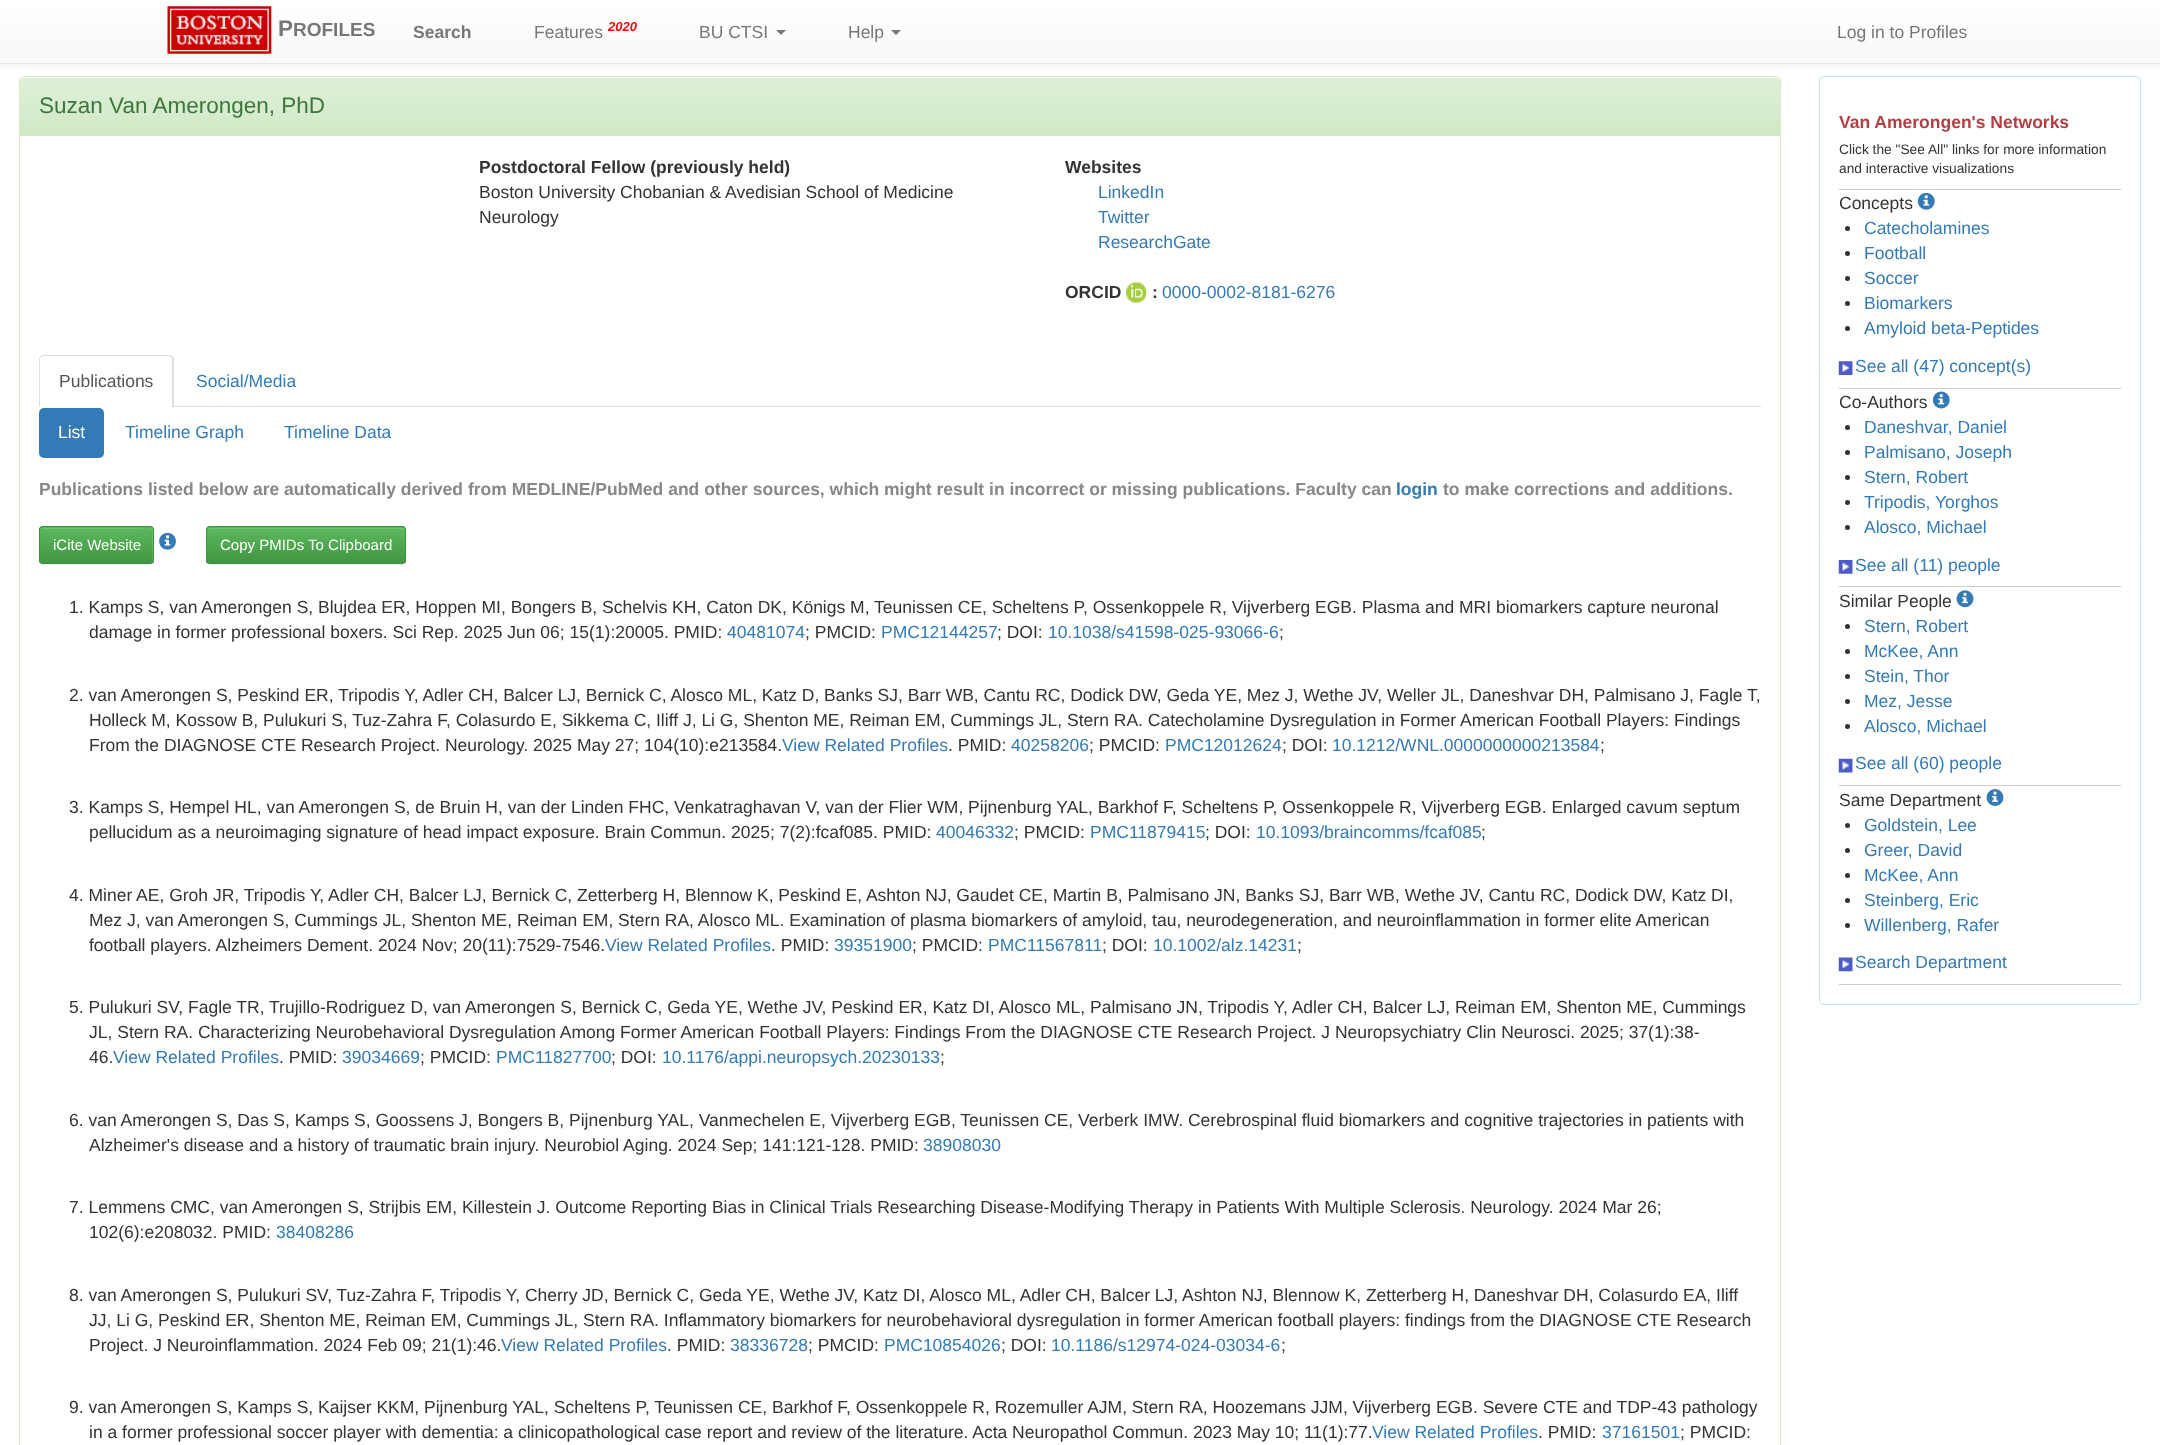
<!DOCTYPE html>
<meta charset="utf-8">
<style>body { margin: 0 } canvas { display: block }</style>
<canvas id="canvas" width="2160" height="1445"></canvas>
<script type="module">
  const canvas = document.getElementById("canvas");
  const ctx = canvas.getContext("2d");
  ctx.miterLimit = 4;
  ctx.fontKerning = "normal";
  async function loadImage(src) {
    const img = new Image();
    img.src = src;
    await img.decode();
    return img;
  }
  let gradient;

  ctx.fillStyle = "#ffffff";
  ctx.fillRect(0, 0, 2160, 1445);
  ctx.fillStyle = "rgba(0, 0, 0, 0.07)";
  ctx.filter = "blur(3px)";
  ctx.beginPath();
  ctx.rect(0, 1, 2160, 64);
  ctx.fill();
  ctx.filter = "none";
  gradient = ctx.createLinearGradient(1080, 0, 1080, 63);
  gradient.addColorStop(0, "#ffffff");
  gradient.addColorStop(1, "#f8f8f8");
  ctx.fillStyle = gradient;
  ctx.fillRect(0, 0, 2160, 63);
  ctx.fillStyle = "#e7e7e7";
  ctx.fillRect(0, 63, 2160, 1);
  ctx.drawImage(await loadImage("img1.png"), 167, 6, 105, 48);
  ctx.font = "bold 22.5px Liberation Sans";
  ctx.fillStyle = "#777777";
  ctx.fillText("P", 278, 36);
  ctx.font = "bold 19px Liberation Sans";
  ctx.fillText("ROFILES", 293, 36);
  ctx.font = "bold 17.5px Liberation Sans";
  ctx.fillText("Search", 413, 38);
  ctx.font = "17.5px Liberation Sans";
  ctx.fillText("Features", 534, 38);
  ctx.font = "italic bold 13px Liberation Sans";
  ctx.fillStyle = "#ff0000";
  ctx.fillText("2020", 608, 31);
  ctx.font = "17.5px Liberation Sans";
  ctx.fillStyle = "#777777";
  ctx.fillText("BU CTSI", 699, 38);
  ctx.beginPath();
  ctx.moveTo(776, 30);
  ctx.lineTo(786, 30);
  ctx.lineTo(781, 35);
  ctx.closePath();
  ctx.fill();
  ctx.fillText("Help", 848, 38);
  ctx.beginPath();
  ctx.moveTo(891, 30);
  ctx.lineTo(901, 30);
  ctx.lineTo(896, 35);
  ctx.closePath();
  ctx.fill();
  ctx.fillText("Log in to Profiles", 1837, 38);
  ctx.beginPath();
  ctx.roundRect(19.5, 76.5, 1761, 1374, 4.5);
  ctx.strokeStyle = "#d6e9c6";
  ctx.stroke();
  gradient = ctx.createLinearGradient(900, 77, 900, 135);
  gradient.addColorStop(0, "#dff0d8");
  gradient.addColorStop(1, "#d0e9c6");
  ctx.fillStyle = gradient;
  ctx.beginPath();
  ctx.roundRect(20, 78, 1760, 57, [4, 4, 0, 0]);
  ctx.fill();
  ctx.fillStyle = "#d6e9c6";
  ctx.fillRect(20, 135, 1760, 1);
  ctx.font = "22.5px Liberation Sans";
  ctx.fillStyle = "#3c763d";
  ctx.fillText("Suzan Van Amerongen, PhD", 39, 113);
  ctx.font = "bold 17.5px Liberation Sans";
  ctx.fillStyle = "#333333";
  ctx.fillText("Postdoctoral Fellow (previously held)", 479, 173);
  ctx.font = "17.5px Liberation Sans";
  ctx.fillText("Boston University Chobanian & Avedisian School of Medicine", 479, 198);
  ctx.fillText("Neurology", 479, 223);
  ctx.font = "bold 17.5px Liberation Sans";
  ctx.fillText("Websites", 1065, 173);
  ctx.font = "17.5px Liberation Sans";
  ctx.fillStyle = "#337ab7";
  ctx.fillText("LinkedIn", 1098, 198);
  ctx.fillText("Twitter", 1098, 223);
  ctx.fillText("ResearchGate", 1098, 248);
  ctx.font = "bold 17.5px Liberation Sans";
  ctx.fillStyle = "#333333";
  ctx.fillText("ORCID", 1065, 298);
  ctx.drawImage(await loadImage("img2.png"), 1126, 282, 21, 21);
  ctx.fillText(":", 1152, 298);
  ctx.font = "17.5px Liberation Sans";
  ctx.fillStyle = "#337ab7";
  ctx.fillText("0000-0002-8181-6276", 1162, 298);
  ctx.fillStyle = "#dddddd";
  ctx.fillRect(174, 406, 1587, 1);
  ctx.beginPath();
  ctx.moveTo(44, 355);
  ctx.bezierCurveTo(42, 355, 41, 356, 40, 357);
  ctx.lineTo(41, 357);
  ctx.lineTo(44, 356);
  ctx.lineTo(169, 356);
  ctx.bezierCurveTo(170, 356, 171, 357, 171, 357);
  ctx.lineTo(172, 356);
  ctx.bezierCurveTo(172, 355, 170, 355, 169, 355);
  ctx.closePath();
  ctx.fill();
  ctx.beginPath();
  ctx.moveTo(172, 356);
  ctx.lineTo(174, 358);
  ctx.lineTo(174, 408);
  ctx.lineTo(172, 406);
  ctx.lineTo(172, 360);
  ctx.lineTo(171, 357);
  ctx.closePath();
  ctx.fill();
  ctx.beginPath();
  ctx.moveTo(40, 357);
  ctx.bezierCurveTo(39, 357, 39, 359, 39, 360);
  ctx.lineTo(39, 407);
  ctx.lineTo(40, 406);
  ctx.lineTo(40, 360);
  ctx.bezierCurveTo(40, 359, 40, 358, 41, 357);
  ctx.closePath();
  ctx.fill();
  ctx.fillStyle = "#555555";
  ctx.fillText("Publications", 59, 387);
  ctx.fillStyle = "#337ab7";
  ctx.fillText("Social/Media", 196, 387);
  ctx.beginPath();
  ctx.roundRect(39, 408, 65, 50, 5);
  ctx.fill();
  ctx.fillStyle = "#ffffff";
  ctx.fillText("List", 58, 438);
  ctx.fillStyle = "#337ab7";
  ctx.fillText("Timeline Graph", 125, 438);
  ctx.fillText("Timeline Data", 284, 438);
  ctx.font = "bold 17.5px Liberation Sans";
  ctx.fillStyle = "#888888";
  ctx.fillText("Publications listed below are automatically derived from MEDLINE/PubMed and other sources, which might result in incorrect or missing publications. Faculty can", 39, 495);
  ctx.fillStyle = "#337ab7";
  ctx.fillText("login", 1396, 495);
  ctx.fillStyle = "#888888";
  ctx.fillText("to make corrections and additions.", 1443, 495);
  ctx.fillStyle = "rgba(0, 0, 0, 0.07)";
  ctx.filter = "blur(0.5px)";
  ctx.beginPath();
  ctx.roundRect(39, 528, 115, 37, 4);
  ctx.fill();
  ctx.filter = "none";
  ctx.fillStyle = "#5cb85c";
  ctx.beginPath();
  ctx.roundRect(39, 526, 115, 38, 4);
  ctx.fill();
  ctx.save();
  ctx.beginPath();
  ctx.roundRect(39, 526, 115, 38, 4);
  ctx.clip();
  gradient = ctx.createLinearGradient(96, 528, 96, 563);
  gradient.addColorStop(0, "#5cb85c");
  gradient.addColorStop(1, "#419641");
  ctx.fillStyle = gradient;
  ctx.fillRect(39, 528, 115, 35);
  ctx.restore();
  ctx.fillStyle = "rgba(255, 255, 255, 0.15)";
  ctx.beginPath();
  ctx.moveTo(42, 529);
  ctx.lineTo(132, 529);
  ctx.bezierCurveTo(154, 529, 152, 524, 152, 541);
  ctx.lineTo(152, 563);
  ctx.bezierCurveTo(152, 562, 153, 561, 153, 560);
  ctx.lineTo(153, 530);
  ctx.bezierCurveTo(153, 529, 152, 528, 150, 528);
  ctx.lineTo(42, 528);
  ctx.bezierCurveTo(41, 528, 40, 529, 40, 530);
  ctx.lineTo(40, 531);
  ctx.bezierCurveTo(40, 530, 41, 529, 42, 529);
  ctx.closePath();
  ctx.fill();
  ctx.beginPath();
  ctx.roundRect(39.5, 526.5, 114, 37, 3.5);
  ctx.strokeStyle = "#3e8f3e";
  ctx.stroke();
  ctx.font = "15px Liberation Sans";
  ctx.fillStyle = "#ffffff";
  ctx.fillText("iCite Website", 53, 550);
  ctx.drawImage(await loadImage("img3.png"), 159, 532, 17, 18);
  ctx.fillStyle = "rgba(0, 0, 0, 0.07)";
  ctx.filter = "blur(0.5px)";
  ctx.beginPath();
  ctx.roundRect(206, 528, 200, 37, 4);
  ctx.fill();
  ctx.filter = "none";
  ctx.fillStyle = "#5cb85c";
  ctx.beginPath();
  ctx.roundRect(206, 526, 200, 38, 4);
  ctx.fill();
  ctx.save();
  ctx.beginPath();
  ctx.roundRect(206, 526, 200, 38, 4);
  ctx.clip();
  gradient = ctx.createLinearGradient(306, 528, 306, 563);
  gradient.addColorStop(0, "#5cb85c");
  gradient.addColorStop(1, "#419641");
  ctx.fillStyle = gradient;
  ctx.fillRect(206, 528, 200, 35);
  ctx.restore();
  ctx.fillStyle = "#74c374";
  ctx.beginPath();
  ctx.moveTo(210, 529);
  ctx.lineTo(402, 529);
  ctx.bezierCurveTo(404, 529, 405, 530, 405, 531);
  ctx.lineTo(405, 529);
  ctx.lineTo(403, 528);
  ctx.lineTo(210, 528);
  ctx.bezierCurveTo(209, 528, 208, 529, 208, 531);
  ctx.bezierCurveTo(208, 530, 209, 529, 210, 529);
  ctx.closePath();
  ctx.fill();
  ctx.beginPath();
  ctx.roundRect(206.5, 526.5, 199, 37, 3.5);
  ctx.stroke();
  ctx.fillStyle = "#ffffff";
  ctx.fillText("Copy PMIDs To Clipboard", 220, 550);
  ctx.font = "17.5px Liberation Sans";
  ctx.fillStyle = "#333333";
  ctx.fillText("1. Kamps S, van Amerongen S, Blujdea ER, Hoppen MI, Bongers B, Schelvis KH, Caton DK, Königs M, Teunissen CE, Scheltens P, Ossenkoppele R, Vijverberg EGB. Plasma and MRI biomarkers capture neuronal", 69, 613);
  ctx.fillText("damage in former professional boxers. Sci Rep. 2025 Jun 06; 15(1):20005. PMID:", 89, 638);
  ctx.fillStyle = "#337ab7";
  ctx.fillText("40481074", 727, 638);
  ctx.fillStyle = "#333333";
  ctx.fillText("; PMCID:", 805, 638);
  ctx.fillStyle = "#337ab7";
  ctx.fillText("PMC12144257", 881, 638);
  ctx.fillStyle = "#333333";
  ctx.fillText("; DOI:", 997, 638);
  ctx.fillStyle = "#337ab7";
  ctx.fillText("10.1038/s41598-025-93066-6", 1048, 638);
  ctx.fillStyle = "#333333";
  ctx.fillText(";", 1279, 638);
  ctx.fillText("2. van Amerongen S, Peskind ER, Tripodis Y, Adler CH, Balcer LJ, Bernick C, Alosco ML, Katz D, Banks SJ, Barr WB, Cantu RC, Dodick DW, Geda YE, Mez J, Wethe JV, Weller JL, Daneshvar DH, Palmisano J, Fagle T,", 69, 701);
  ctx.fillText("Holleck M, Kossow B, Pulukuri S, Tuz-Zahra F, Colasurdo E, Sikkema C, Iliff J, Li G, Shenton ME, Reiman EM, Cummings JL, Stern RA. Catecholamine Dysregulation in Former American Football Players: Findings", 89, 726);
  ctx.fillText("From the DIAGNOSE CTE Research Project. Neurology. 2025 May 27; 104(10):e213584.", 89, 751);
  ctx.fillStyle = "#337ab7";
  ctx.fillText("View Related Profiles", 782, 751);
  ctx.fillStyle = "#333333";
  ctx.fillText(". PMID:", 948, 751);
  ctx.fillStyle = "#337ab7";
  ctx.fillText("40258206", 1011, 751);
  ctx.fillStyle = "#333333";
  ctx.fillText("; PMCID:", 1089, 751);
  ctx.fillStyle = "#337ab7";
  ctx.fillText("PMC12012624", 1165, 751);
  ctx.fillStyle = "#333333";
  ctx.fillText("; DOI:", 1282, 751);
  ctx.fillStyle = "#337ab7";
  ctx.fillText("10.1212/WNL.0000000000213584", 1332, 751);
  ctx.fillStyle = "#333333";
  ctx.fillText(";", 1600, 751);
  ctx.fillText("3. Kamps S, Hempel HL, van Amerongen S, de Bruin H, van der Linden FHC, Venkatraghavan V, van der Flier WM, Pijnenburg YAL, Barkhof F, Scheltens P, Ossenkoppele R, Vijverberg EGB. Enlarged cavum septum", 69, 813);
  ctx.fillText("pellucidum as a neuroimaging signature of head impact exposure. Brain Commun. 2025; 7(2):fcaf085. PMID:", 89, 838);
  ctx.fillStyle = "#337ab7";
  ctx.fillText("40046332", 936, 838);
  ctx.fillStyle = "#333333";
  ctx.fillText("; PMCID:", 1014, 838);
  ctx.fillStyle = "#337ab7";
  ctx.fillText("PMC11879415", 1090, 838);
  ctx.fillStyle = "#333333";
  ctx.fillText("; DOI:", 1205, 838);
  ctx.fillStyle = "#337ab7";
  ctx.fillText("10.1093/braincomms/fcaf085", 1256, 838);
  ctx.fillStyle = "#333333";
  ctx.fillText(";", 1481, 838);
  ctx.fillText("4. Miner AE, Groh JR, Tripodis Y, Adler CH, Balcer LJ, Bernick C, Zetterberg H, Blennow K, Peskind E, Ashton NJ, Gaudet CE, Martin B, Palmisano JN, Banks SJ, Barr WB, Wethe JV, Cantu RC, Dodick DW, Katz DI,", 69, 901);
  ctx.fillText("Mez J, van Amerongen S, Cummings JL, Shenton ME, Reiman EM, Stern RA, Alosco ML. Examination of plasma biomarkers of amyloid, tau, neurodegeneration, and neuroinflammation in former elite American", 89, 926);
  ctx.fillText("football players. Alzheimers Dement. 2024 Nov; 20(11):7529-7546.", 89, 951);
  ctx.fillStyle = "#337ab7";
  ctx.fillText("View Related Profiles", 605, 951);
  ctx.fillStyle = "#333333";
  ctx.fillText(". PMID:", 771, 951);
  ctx.fillStyle = "#337ab7";
  ctx.fillText("39351900", 834, 951);
  ctx.fillStyle = "#333333";
  ctx.fillText("; PMCID:", 912, 951);
  ctx.fillStyle = "#337ab7";
  ctx.fillText("PMC11567811", 988, 951);
  ctx.fillStyle = "#333333";
  ctx.fillText("; DOI:", 1102, 951);
  ctx.fillStyle = "#337ab7";
  ctx.fillText("10.1002/alz.14231", 1153, 951);
  ctx.fillStyle = "#333333";
  ctx.fillText(";", 1297, 951);
  ctx.fillText("5. Pulukuri SV, Fagle TR, Trujillo-Rodriguez D, van Amerongen S, Bernick C, Geda YE, Wethe JV, Peskind ER, Katz DI, Alosco ML, Palmisano JN, Tripodis Y, Adler CH, Balcer LJ, Reiman EM, Shenton ME, Cummings", 69, 1013);
  ctx.fillText("JL, Stern RA. Characterizing Neurobehavioral Dysregulation Among Former American Football Players: Findings From the DIAGNOSE CTE Research Project. J Neuropsychiatry Clin Neurosci. 2025; 37(1):38-", 89, 1038);
  ctx.fillText("46.", 89, 1063);
  ctx.fillStyle = "#337ab7";
  ctx.fillText("View Related Profiles", 113, 1063);
  ctx.fillStyle = "#333333";
  ctx.fillText(". PMID:", 279, 1063);
  ctx.fillStyle = "#337ab7";
  ctx.fillText("39034669", 342, 1063);
  ctx.fillStyle = "#333333";
  ctx.fillText("; PMCID:", 420, 1063);
  ctx.fillStyle = "#337ab7";
  ctx.fillText("PMC11827700", 496, 1063);
  ctx.fillStyle = "#333333";
  ctx.fillText("; DOI:", 611, 1063);
  ctx.fillStyle = "#337ab7";
  ctx.fillText("10.1176/appi.neuropsych.20230133", 662, 1063);
  ctx.fillStyle = "#333333";
  ctx.fillText(";", 940, 1063);
  ctx.fillText("6. van Amerongen S, Das S, Kamps S, Goossens J, Bongers B, Pijnenburg YAL, Vanmechelen E, Vijverberg EGB, Teunissen CE, Verberk IMW. Cerebrospinal fluid biomarkers and cognitive trajectories in patients with", 69, 1126);
  ctx.fillText("Alzheimer's disease and a history of traumatic brain injury. Neurobiol Aging. 2024 Sep; 141:121-128. PMID:", 89, 1151);
  ctx.fillStyle = "#337ab7";
  ctx.fillText("38908030", 923, 1151);
  ctx.fillStyle = "#333333";
  ctx.fillText("7. Lemmens CMC, van Amerongen S, Strijbis EM, Killestein J. Outcome Reporting Bias in Clinical Trials Researching Disease-Modifying Therapy in Patients With Multiple Sclerosis. Neurology. 2024 Mar 26;", 69, 1213);
  ctx.fillText("102(6):e208032. PMID:", 89, 1238);
  ctx.fillStyle = "#337ab7";
  ctx.fillText("38408286", 276, 1238);
  ctx.fillStyle = "#333333";
  ctx.fillText("8. van Amerongen S, Pulukuri SV, Tuz-Zahra F, Tripodis Y, Cherry JD, Bernick C, Geda YE, Wethe JV, Katz DI, Alosco ML, Adler CH, Balcer LJ, Ashton NJ, Blennow K, Zetterberg H, Daneshvar DH, Colasurdo EA, Iliff", 69, 1301);
  ctx.fillText("JJ, Li G, Peskind ER, Shenton ME, Reiman EM, Cummings JL, Stern RA. Inflammatory biomarkers for neurobehavioral dysregulation in former American football players: findings from the DIAGNOSE CTE Research", 89, 1326);
  ctx.fillText("Project. J Neuroinflammation. 2024 Feb 09; 21(1):46.", 89, 1351);
  ctx.fillStyle = "#337ab7";
  ctx.fillText("View Related Profiles", 501, 1351);
  ctx.fillStyle = "#333333";
  ctx.fillText(". PMID:", 667, 1351);
  ctx.fillStyle = "#337ab7";
  ctx.fillText("38336728", 730, 1351);
  ctx.fillStyle = "#333333";
  ctx.fillText("; PMCID:", 808, 1351);
  ctx.fillStyle = "#337ab7";
  ctx.fillText("PMC10854026", 884, 1351);
  ctx.fillStyle = "#333333";
  ctx.fillText("; DOI:", 1001, 1351);
  ctx.fillStyle = "#337ab7";
  ctx.fillText("10.1186/s12974-024-03034-6", 1051, 1351);
  ctx.fillStyle = "#333333";
  ctx.fillText(";", 1281, 1351);
  ctx.fillText("9. van Amerongen S, Kamps S, Kaijser KKM, Pijnenburg YAL, Scheltens P, Teunissen CE, Barkhof F, Ossenkoppele R, Rozemuller AJM, Stern RA, Hoozemans JJM, Vijverberg EGB. Severe CTE and TDP-43 pathology", 69, 1413);
  ctx.fillText("in a former professional soccer player with dementia: a clinicopathological case report and review of the literature. Acta Neuropathol Commun. 2023 May 10; 11(1):77.", 89, 1438);
  ctx.fillStyle = "#337ab7";
  ctx.fillText("View Related Profiles", 1372, 1438);
  ctx.fillStyle = "#333333";
  ctx.fillText(". PMID:", 1538, 1438);
  ctx.fillStyle = "#337ab7";
  ctx.fillText("37161501", 1602, 1438);
  ctx.fillStyle = "#333333";
  ctx.fillText("; PMCID:", 1680, 1438);
  ctx.beginPath();
  ctx.roundRect(1819.5, 76.5, 321, 928, 4.5);
  ctx.strokeStyle = "#bce8f1";
  ctx.stroke();
  ctx.font = "bold 17.5px Liberation Sans";
  ctx.fillStyle = "#b23f45";
  ctx.fillText("Van Amerongen's Networks", 1839, 128);
  ctx.font = "13.75px Liberation Sans";
  ctx.fillStyle = "#333333";
  ctx.fillText("Click the \"See All\" links for more information", 1839, 154);
  ctx.fillText("and interactive visualizations", 1839, 173);
  ctx.fillStyle = "#cccccc";
  ctx.fillRect(1839, 189, 282, 1);
  ctx.font = "17.5px Liberation Sans";
  ctx.fillStyle = "#333333";
  ctx.fillText("Concepts", 1839, 209);
  ctx.drawImage(await loadImage("img4.png"), 1917, 192, 18, 18);
  ctx.beginPath();
  ctx.arc(1847.5, 228.5, 2.5, 0, Math.PI * 2);
  ctx.fill();
  ctx.fillStyle = "#337ab7";
  ctx.fillText("Catecholamines", 1864, 234);
  ctx.fillStyle = "#333333";
  ctx.beginPath();
  ctx.arc(1847.5, 253.5, 2.5, 0, Math.PI * 2);
  ctx.fill();
  ctx.fillStyle = "#337ab7";
  ctx.fillText("Football", 1864, 259);
  ctx.fillStyle = "#333333";
  ctx.beginPath();
  ctx.arc(1847.5, 278.5, 2.5, 0, Math.PI * 2);
  ctx.fill();
  ctx.fillStyle = "#337ab7";
  ctx.fillText("Soccer", 1864, 284);
  ctx.fillStyle = "#333333";
  ctx.beginPath();
  ctx.arc(1847.5, 303.5, 2.5, 0, Math.PI * 2);
  ctx.fill();
  ctx.fillStyle = "#337ab7";
  ctx.fillText("Biomarkers", 1864, 309);
  ctx.fillStyle = "#333333";
  ctx.beginPath();
  ctx.arc(1847.5, 328.5, 2.5, 0, Math.PI * 2);
  ctx.fill();
  ctx.fillStyle = "#337ab7";
  ctx.fillText("Amyloid beta-Peptides", 1864, 334);
  ctx.drawImage(await loadImage("img5.png"), 1838, 361, 15, 14);
  ctx.fillText("See all (47) concept(s)", 1855, 372);
  ctx.fillStyle = "#cccccc";
  ctx.fillRect(1839, 388, 282, 1);
  ctx.fillStyle = "#333333";
  ctx.fillText("Co-Authors", 1839, 408);
  ctx.drawImage(await loadImage("img6.png"), 1932, 391, 18, 18);
  ctx.beginPath();
  ctx.arc(1847.5, 427.5, 2.5, 0, Math.PI * 2);
  ctx.fill();
  ctx.fillStyle = "#337ab7";
  ctx.fillText("Daneshvar, Daniel", 1864, 433);
  ctx.fillStyle = "#333333";
  ctx.beginPath();
  ctx.arc(1847.5, 452.5, 2.5, 0, Math.PI * 2);
  ctx.fill();
  ctx.fillStyle = "#337ab7";
  ctx.fillText("Palmisano, Joseph", 1864, 458);
  ctx.fillStyle = "#333333";
  ctx.beginPath();
  ctx.arc(1847.5, 477.5, 2.5, 0, Math.PI * 2);
  ctx.fill();
  ctx.fillStyle = "#337ab7";
  ctx.fillText("Stern, Robert", 1864, 483);
  ctx.fillStyle = "#333333";
  ctx.beginPath();
  ctx.arc(1847.5, 502.5, 2.5, 0, Math.PI * 2);
  ctx.fill();
  ctx.fillStyle = "#337ab7";
  ctx.fillText("Tripodis, Yorghos", 1864, 508);
  ctx.fillStyle = "#333333";
  ctx.beginPath();
  ctx.arc(1847.5, 527.5, 2.5, 0, Math.PI * 2);
  ctx.fill();
  ctx.fillStyle = "#337ab7";
  ctx.fillText("Alosco, Michael", 1864, 533);
  ctx.drawImage(await loadImage("img7.png"), 1838, 560, 15, 14);
  ctx.fillText("See all (11) people", 1855, 571);
  ctx.fillStyle = "#cccccc";
  ctx.fillRect(1839, 586, 282, 1);
  ctx.fillStyle = "#333333";
  ctx.fillText("Similar People", 1839, 607);
  ctx.drawImage(await loadImage("img8.png"), 1956, 590, 18, 18);
  ctx.beginPath();
  ctx.arc(1847.5, 626.5, 2.5, 0, Math.PI * 2);
  ctx.fill();
  ctx.fillStyle = "#337ab7";
  ctx.fillText("Stern, Robert", 1864, 632);
  ctx.fillStyle = "#333333";
  ctx.beginPath();
  ctx.arc(1847.5, 651.5, 2.5, 0, Math.PI * 2);
  ctx.fill();
  ctx.fillStyle = "#337ab7";
  ctx.fillText("McKee, Ann", 1864, 657);
  ctx.fillStyle = "#333333";
  ctx.beginPath();
  ctx.arc(1847.5, 676.5, 2.5, 0, Math.PI * 2);
  ctx.fill();
  ctx.fillStyle = "#337ab7";
  ctx.fillText("Stein, Thor", 1864, 682);
  ctx.fillStyle = "#333333";
  ctx.beginPath();
  ctx.arc(1847.5, 701.5, 2.5, 0, Math.PI * 2);
  ctx.fill();
  ctx.fillStyle = "#337ab7";
  ctx.fillText("Mez, Jesse", 1864, 707);
  ctx.fillStyle = "#333333";
  ctx.beginPath();
  ctx.arc(1847.5, 726.5, 2.5, 0, Math.PI * 2);
  ctx.fill();
  ctx.fillStyle = "#337ab7";
  ctx.fillText("Alosco, Michael", 1864, 732);
  ctx.drawImage(await loadImage("img9.png"), 1838, 758, 15, 15);
  ctx.fillText("See all (60) people", 1855, 769);
  ctx.fillStyle = "#cccccc";
  ctx.fillRect(1839, 785, 282, 1);
  ctx.fillStyle = "#333333";
  ctx.fillText("Same Department", 1839, 806);
  ctx.drawImage(await loadImage("img10.png"), 1986, 789, 18, 17);
  ctx.beginPath();
  ctx.arc(1847.5, 825.5, 2.5, 0, Math.PI * 2);
  ctx.fill();
  ctx.fillStyle = "#337ab7";
  ctx.fillText("Goldstein, Lee", 1864, 831);
  ctx.fillStyle = "#333333";
  ctx.beginPath();
  ctx.arc(1847.5, 850.5, 2.5, 0, Math.PI * 2);
  ctx.fill();
  ctx.fillStyle = "#337ab7";
  ctx.fillText("Greer, David", 1864, 856);
  ctx.fillStyle = "#333333";
  ctx.beginPath();
  ctx.arc(1847.5, 875.5, 2.5, 0, Math.PI * 2);
  ctx.fill();
  ctx.fillStyle = "#337ab7";
  ctx.fillText("McKee, Ann", 1864, 881);
  ctx.fillStyle = "#333333";
  ctx.beginPath();
  ctx.arc(1847.5, 900.5, 2.5, 0, Math.PI * 2);
  ctx.fill();
  ctx.fillStyle = "#337ab7";
  ctx.fillText("Steinberg, Eric", 1864, 906);
  ctx.fillStyle = "#333333";
  ctx.beginPath();
  ctx.arc(1847.5, 925.5, 2.5, 0, Math.PI * 2);
  ctx.fill();
  ctx.fillStyle = "#337ab7";
  ctx.fillText("Willenberg, Rafer", 1864, 931);
  ctx.drawImage(await loadImage("img11.png"), 1838, 957, 15, 15);
  ctx.fillText("Search Department", 1855, 968);
  ctx.fillStyle = "#cccccc";
  ctx.fillRect(1839, 984, 282, 1);
</script>
